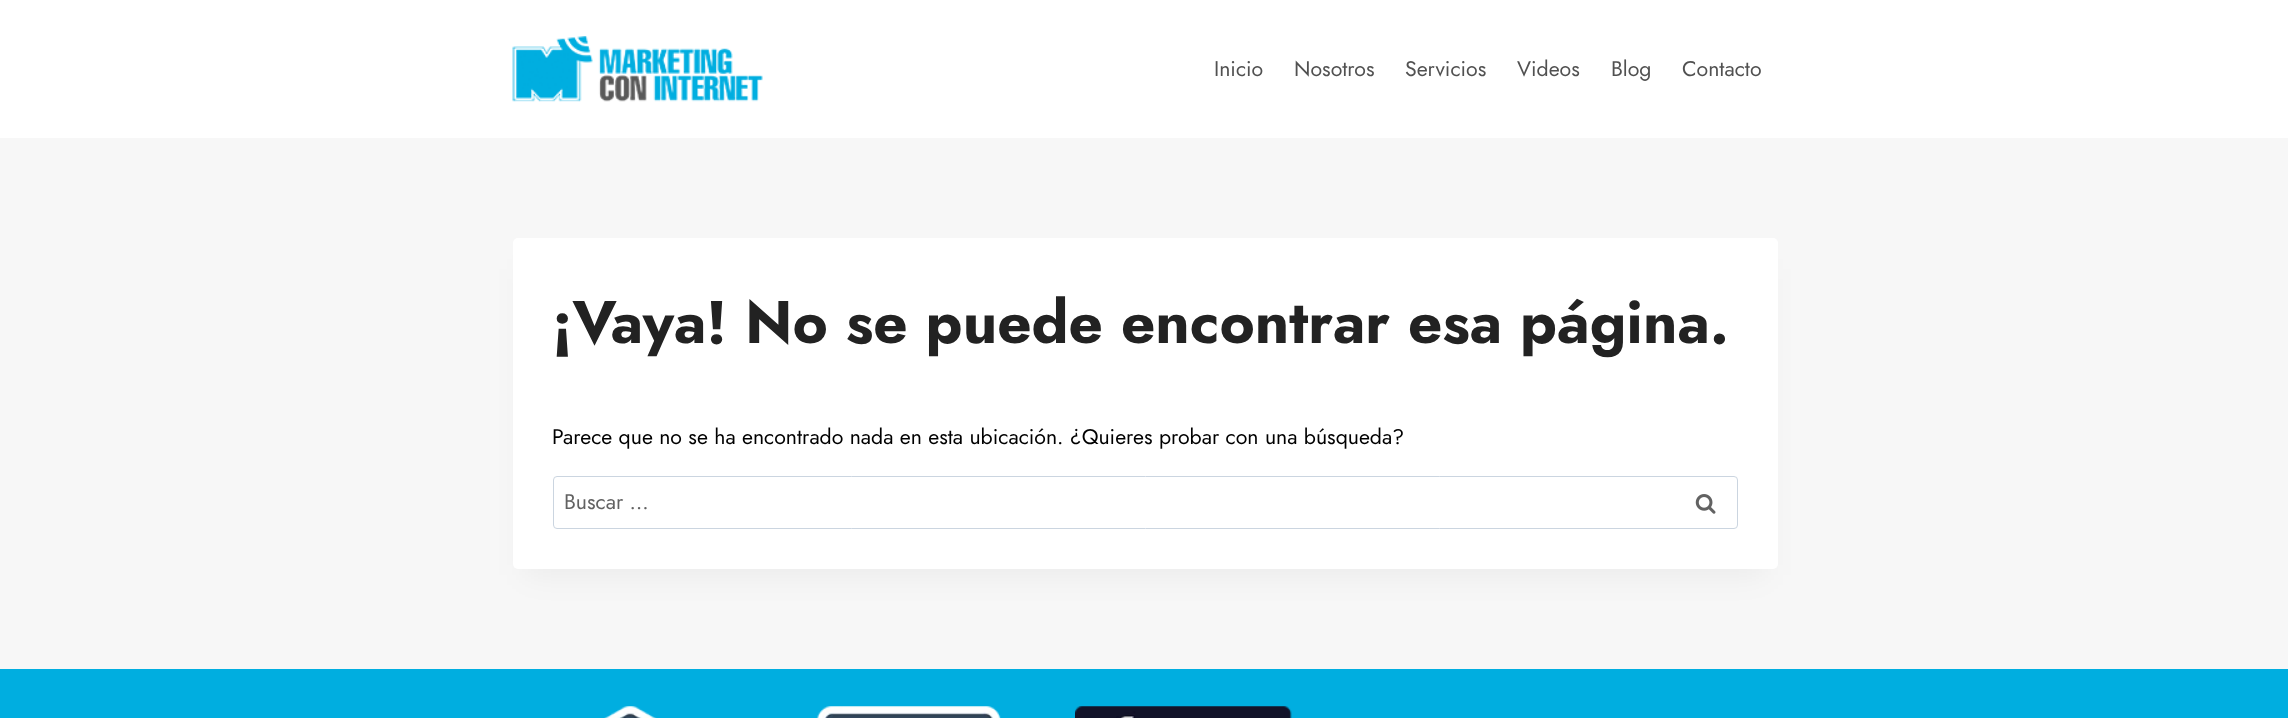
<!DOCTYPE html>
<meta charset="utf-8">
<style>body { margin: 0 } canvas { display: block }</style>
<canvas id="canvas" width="2288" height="718"></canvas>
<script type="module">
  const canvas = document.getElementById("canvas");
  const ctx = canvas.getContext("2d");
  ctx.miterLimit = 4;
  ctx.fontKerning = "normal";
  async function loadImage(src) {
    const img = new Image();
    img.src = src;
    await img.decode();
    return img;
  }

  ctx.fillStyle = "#f7f7f7";
  ctx.fillRect(0, 0, 2288, 718);
  ctx.fillStyle = "#ffffff";
  ctx.fillRect(0, 0, 2288, 138);
  ctx.drawImage(await loadImage("img1.png"), 512, 36, 251, 66);
  ctx.font = "21.25px Jost";
  ctx.fillStyle = "#515151";
  ctx.fillText("Inicio", 1214, 76);
  ctx.fillText("Nosotros", 1294, 76);
  ctx.fillText("Servicios", 1405, 76);
  ctx.fillText("Videos", 1517, 76);
  ctx.fillText("Blog", 1611, 76);
  ctx.fillText("Contacto", 1682, 76);
  ctx.fillStyle = "rgba(0, 0, 0, 0.05)";
  ctx.filter = "blur(15.5px)";
  ctx.beginPath();
  ctx.rect(525, 269, 1240, 306);
  ctx.fill();
  ctx.filter = "none";
  ctx.fillStyle = "#ffffff";
  ctx.beginPath();
  ctx.roundRect(513, 238, 1265, 331, 5);
  ctx.fill();
  ctx.font = "bold 60px Jost";
  ctx.fillStyle = "#222222";
  ctx.fillText("¡Vaya! No se puede encontrar esa página.", 552, 343);
  ctx.font = "21.25px Jost";
  ctx.fillStyle = "#000000";
  ctx.fillText("Parece que no se ha encontrado nada en esta ubicación. ¿Quieres probar con una búsqueda?", 552, 444);
  ctx.beginPath();
  ctx.roundRect(553.5, 476.5, 1184, 52, 3.5);
  ctx.strokeStyle = "#cbd5e0";
  ctx.stroke();
  ctx.fillStyle = "#626262";
  ctx.fillText("Buscar …", 564, 509);
  ctx.drawImage(await loadImage("img2.png"), 1695, 494, 21, 20);
  ctx.fillStyle = "#00aee0";
  ctx.fillRect(0, 669, 2288, 49);
  ctx.drawImage(await loadImage("img3.png"), 604, 706, 53, 12);
  ctx.drawImage(await loadImage("img4.png"), 816, 706, 185, 12);
  ctx.drawImage(await loadImage("img5.png"), 1075, 706, 217, 12);
</script>
